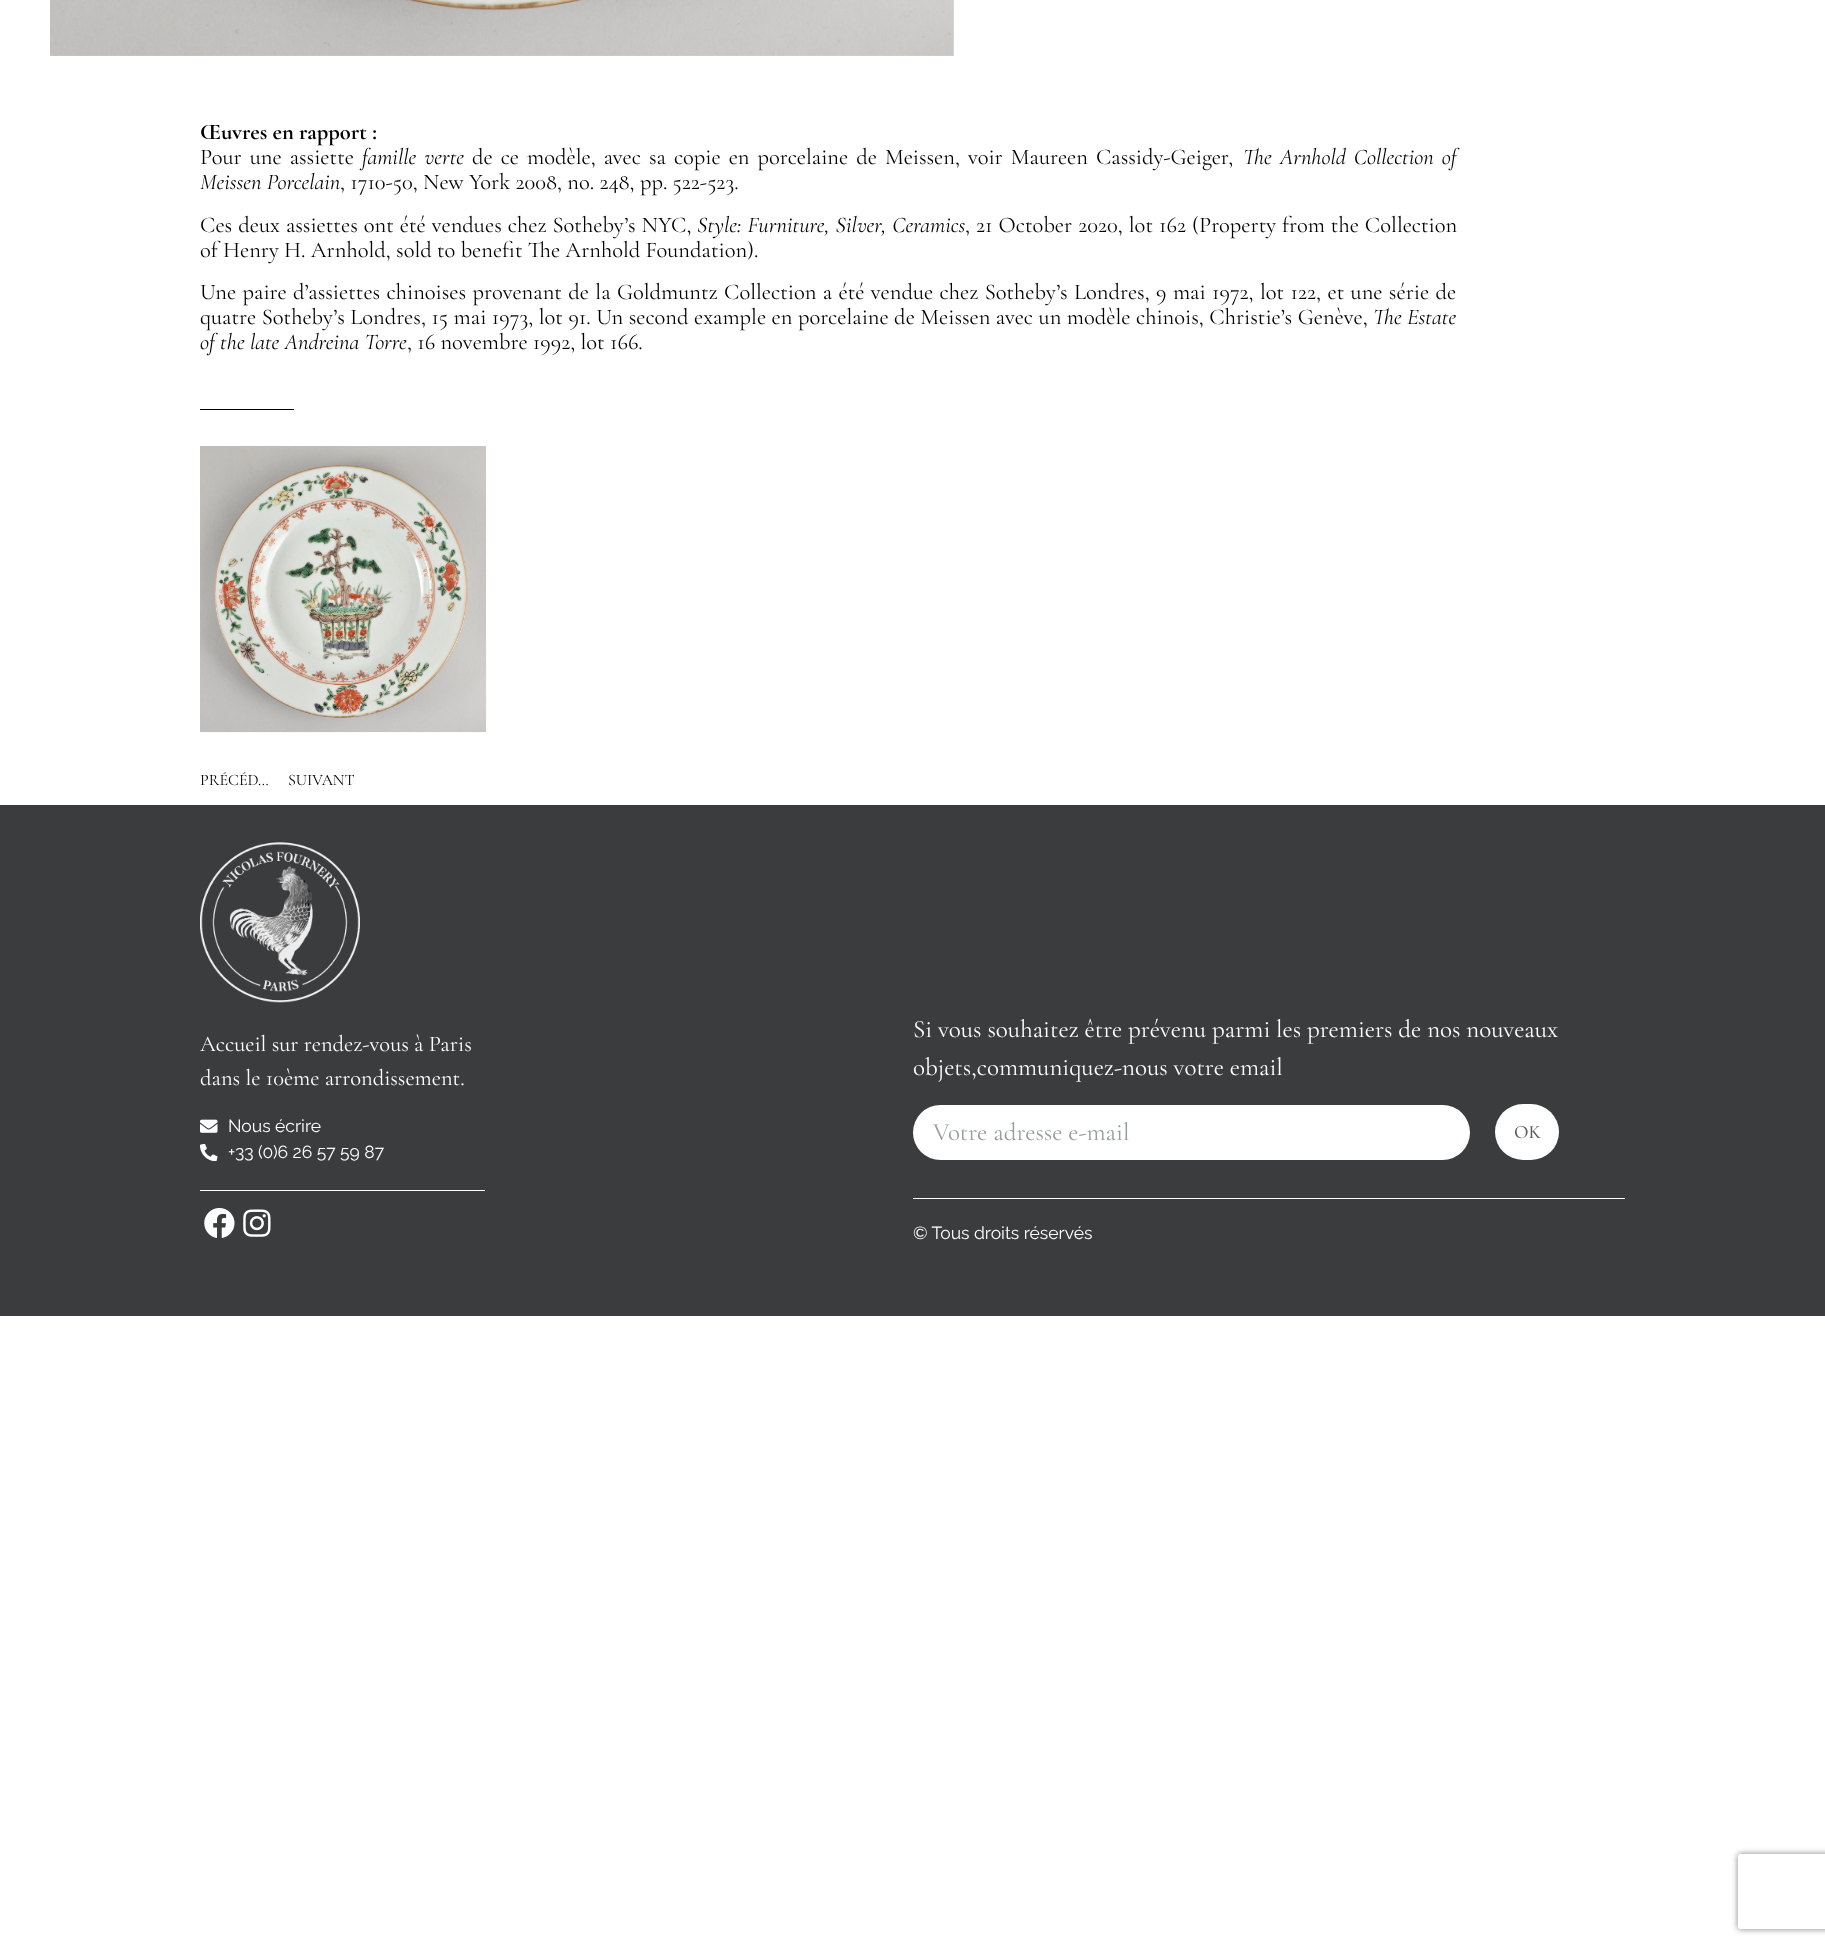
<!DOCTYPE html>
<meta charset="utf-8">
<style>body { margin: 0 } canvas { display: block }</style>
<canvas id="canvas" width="1825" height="1946"></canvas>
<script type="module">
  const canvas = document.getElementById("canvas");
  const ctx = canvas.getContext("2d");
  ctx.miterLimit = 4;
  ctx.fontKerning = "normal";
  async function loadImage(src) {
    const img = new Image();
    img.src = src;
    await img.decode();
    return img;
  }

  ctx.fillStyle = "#ffffff";
  ctx.fillRect(0, 0, 1825, 1946);
  ctx.drawImage(await loadImage("img1.png"), 50, 0, 904, 56);
  ctx.font = "bold 22.5px Cormorant Garamond";
  ctx.fillStyle = "#000000";
  ctx.fillText("Œuvres en rapport :", 200, 139);
  ctx.wordSpacing = "2.75px";
  ctx.font = "22.5px Cormorant Garamond";
  ctx.fillText("Pour une assiette", 200, 164);
  ctx.wordSpacing = "3px";
  ctx.font = "italic 22.5px Cormorant Garamond";
  ctx.fillText("famille verte", 362, 164);
  ctx.wordSpacing = "2.75px";
  ctx.font = "22.5px Cormorant Garamond";
  ctx.fillText("de ce modèle, avec sa copie en porcelaine de Meissen, voir Maureen Cassidy-Geiger,", 472, 164);
  ctx.font = "italic 22.5px Cormorant Garamond";
  ctx.fillText("The Arnhold Collection of", 1243, 164);
  ctx.wordSpacing = "0px";
  ctx.fillText("Meissen Porcelain", 200, 189);
  ctx.font = "22.5px Cormorant Garamond";
  ctx.fillText(", 1710-50, New York 2008, no. 248, pp. 522-523.", 340, 189);
  ctx.wordSpacing = "0.75px";
  ctx.fillText("Ces deux assiettes ont été vendues chez Sotheby’s NYC,", 200, 232);
  ctx.font = "italic 22.5px Cormorant Garamond";
  ctx.fillText("Style: Furniture, Silver, Ceramics", 697, 232);
  ctx.font = "22.5px Cormorant Garamond";
  ctx.fillText(", 21 October 2020, lot 162 (Property from the Collection", 965, 232);
  ctx.wordSpacing = "0px";
  ctx.fillText("of Henry H. Arnhold, sold to benefit The Arnhold Foundation).", 200, 257);
  ctx.wordSpacing = "1.1px";
  ctx.fillText("Une paire d’assiettes chinoises provenant de la Goldmuntz Collection a été vendue chez Sotheby’s Londres, 9 mai 1972, lot 122, et une série de", 200, 299);
  ctx.wordSpacing = "0.25px";
  ctx.fillText("quatre Sotheby’s Londres, 15 mai 1973, lot 91. Un second example en porcelaine de Meissen avec un modèle chinois, Christie’s Genève,", 200, 324);
  ctx.wordSpacing = "0px";
  ctx.font = "italic 22.5px Cormorant Garamond";
  ctx.fillText("The Estate", 1373, 324);
  ctx.fillText("of the late Andreina Torre", 200, 349);
  ctx.font = "22.5px Cormorant Garamond";
  ctx.fillText(", 16 novembre 1992, lot 166.", 407, 349);
  ctx.fillRect(200, 409, 94, 1);
  ctx.drawImage(await loadImage("img2.png"), 200, 446, 287, 287);
  ctx.font = "16px Cormorant Garamond";
  ctx.fillText("PRÉCÉD…", 200, 785);
  ctx.fillText("SUIVANT", 288, 785);
  ctx.fillStyle = "#3b3c3e";
  ctx.fillRect(0, 805, 1825, 511);
  ctx.drawImage(await loadImage("img3.png"), 200, 842, 160, 161);
  ctx.font = "22.5px Cormorant Garamond";
  ctx.fillStyle = "#ffffff";
  ctx.fillText("Accueil sur rendez-vous à Paris", 200, 1051);
  ctx.fillText("dans le 10ème arrondissement.", 200, 1085);
  ctx.drawImage(await loadImage("img4.png"), 200, 1119, 18, 14);
  ctx.font = "17.5px Raleway";
  ctx.fillText("Nous écrire", 228, 1132);
  ctx.drawImage(await loadImage("img5.png"), 200, 1144, 18, 17);
  ctx.fillText("+33 (0)6 26 57 59 87", 228, 1158);
  ctx.fillRect(200, 1190, 285, 1);
  ctx.drawImage(await loadImage("img6.png"), 204, 1208, 31, 30);
  ctx.drawImage(await loadImage("img7.png"), 243, 1209, 28, 28);
  ctx.font = "25px Cormorant Garamond";
  ctx.fillText("Si vous souhaitez être prévenu parmi les premiers de nos nouveaux", 913, 1037);
  ctx.fillText("objets,communiquez-nous votre email", 913, 1075);
  ctx.beginPath();
  ctx.roundRect(913, 1105, 557, 55, 27.5);
  ctx.fill();
  ctx.fillStyle = "#989b9f";
  ctx.fillText("Votre adresse e-mail", 933, 1140);
  ctx.fillStyle = "#ffffff";
  ctx.beginPath();
  ctx.roundRect(1495, 1104, 64, 56, 28);
  ctx.fill();
  ctx.font = "500 19px Cormorant Garamond";
  ctx.fillStyle = "#5d5d5d";
  ctx.fillText("OK", 1514, 1138);
  ctx.save();
  ctx.beginPath();
  ctx.moveTo(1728, 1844);
  ctx.lineTo(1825, 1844);
  ctx.lineTo(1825, 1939);
  ctx.lineTo(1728, 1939);
  ctx.closePath();
  ctx.moveTo(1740.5, 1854);
  ctx.lineTo(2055.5, 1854);
  ctx.bezierCurveTo(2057, 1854, 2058, 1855, 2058, 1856.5);
  ctx.lineTo(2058, 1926.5);
  ctx.bezierCurveTo(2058, 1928, 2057, 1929, 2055.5, 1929);
  ctx.lineTo(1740.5, 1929);
  ctx.bezierCurveTo(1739, 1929, 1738, 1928, 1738, 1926.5);
  ctx.lineTo(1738, 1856.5);
  ctx.bezierCurveTo(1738, 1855, 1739, 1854, 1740.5, 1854);
  ctx.closePath();
  ctx.clip("evenodd");
  ctx.fillStyle = "#808080";
  ctx.filter = "blur(3px)";
  ctx.beginPath();
  ctx.roundRect(1738, 1854, 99, 75, 2.5);
  ctx.fill();
  ctx.filter = "none";
  ctx.restore();
  ctx.fillStyle = "#ffffff";
  ctx.fillRect(913, 1198, 712, 1);
  ctx.font = "17.5px Raleway";
  ctx.fillText("© Tous droits réservés", 913, 1239);
</script>
